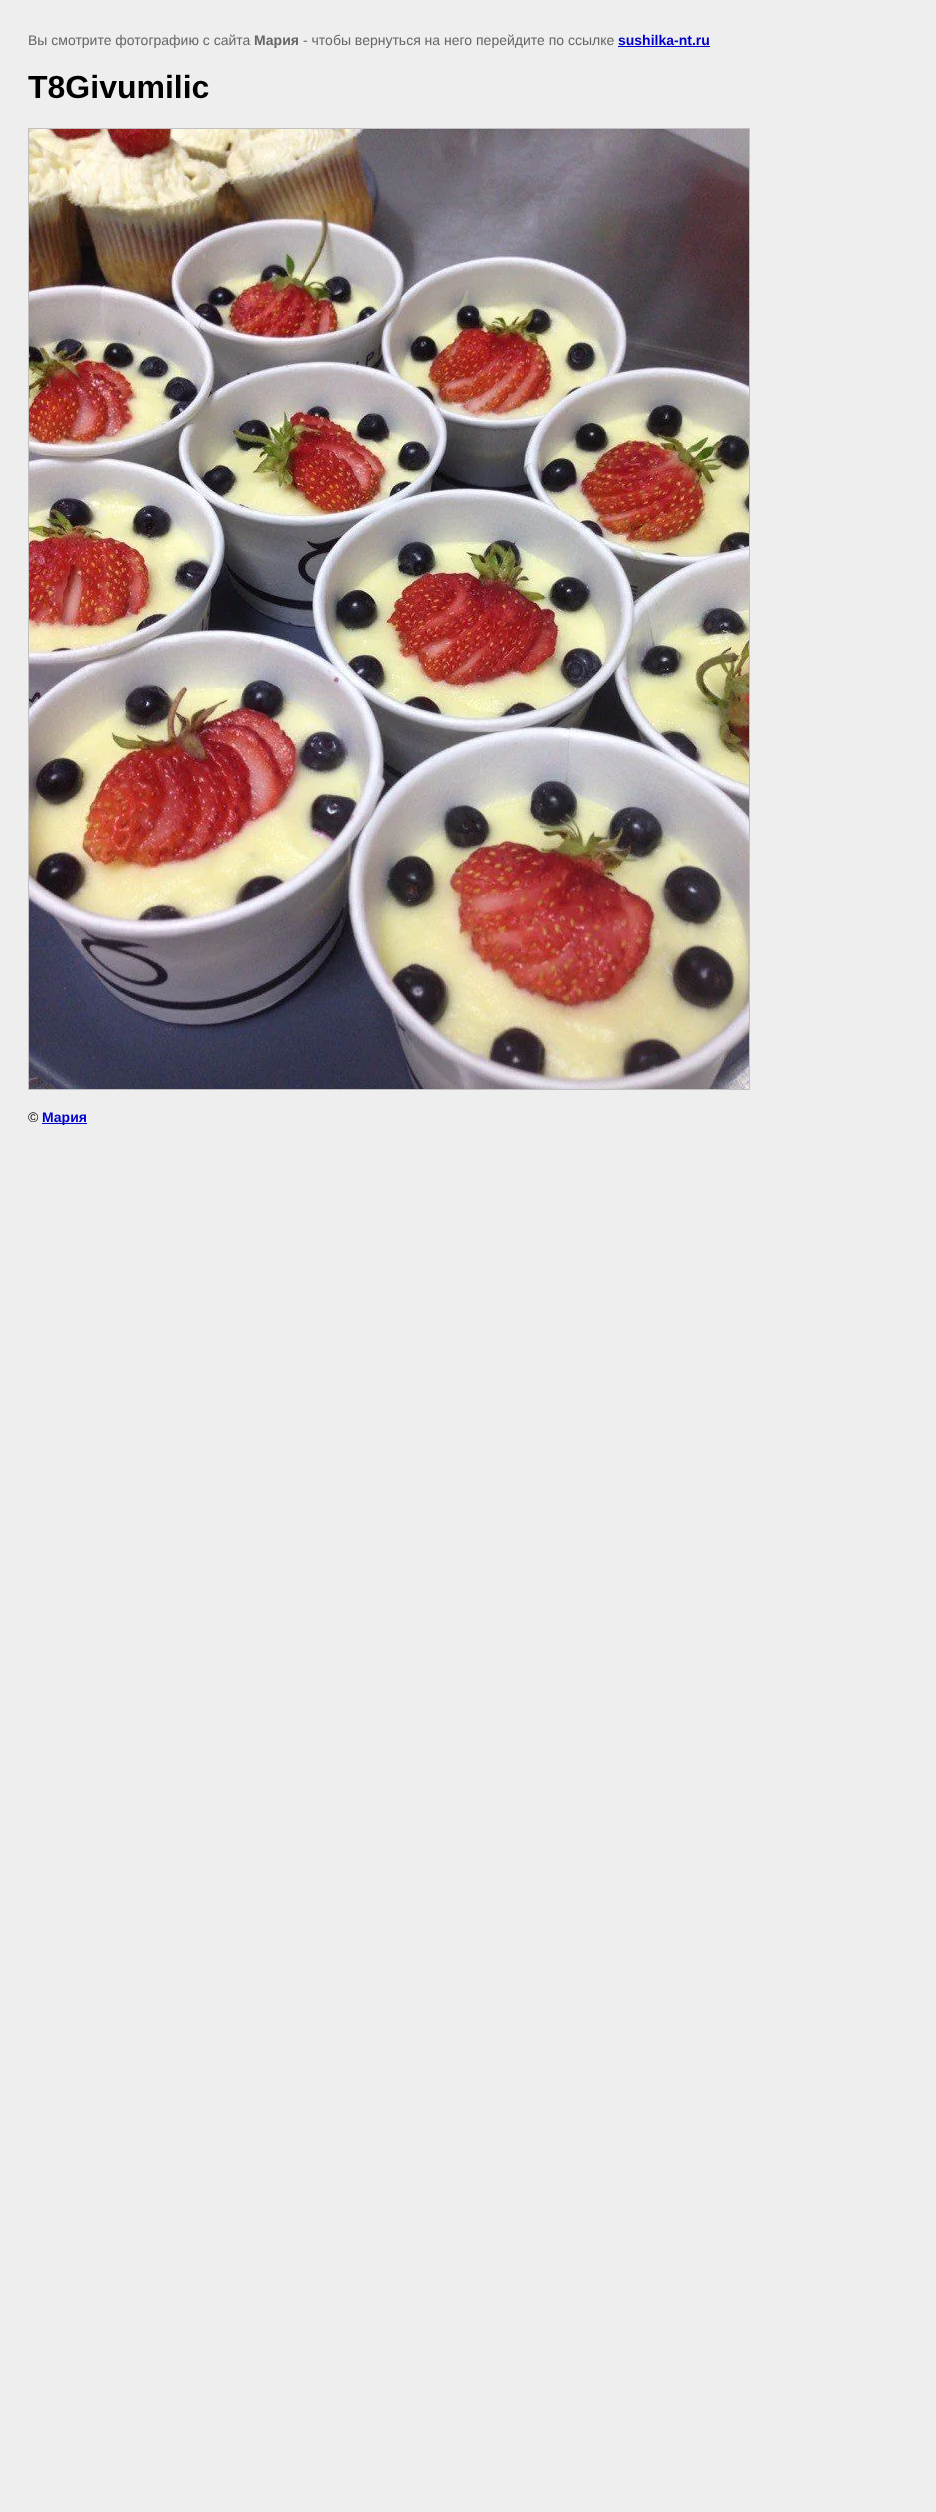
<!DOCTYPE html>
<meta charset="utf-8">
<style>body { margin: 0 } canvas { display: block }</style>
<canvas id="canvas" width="936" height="2512"></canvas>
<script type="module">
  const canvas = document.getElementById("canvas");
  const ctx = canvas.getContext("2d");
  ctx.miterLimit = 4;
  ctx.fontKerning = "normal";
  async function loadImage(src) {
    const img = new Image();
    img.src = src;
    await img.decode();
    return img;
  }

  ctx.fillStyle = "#eeeeee";
  ctx.fillRect(0, 0, 936, 2512);
  ctx.font = "14px Liberation Sans";
  ctx.fillStyle = "#666666";
  ctx.fillText("Вы смотрите фотографию с сайта", 28, 45);
  ctx.font = "bold 14px Liberation Sans";
  ctx.fillText("Мария", 254, 45);
  ctx.font = "14px Liberation Sans";
  ctx.fillText("- чтобы вернуться на него перейдите по ссылке", 303, 45);
  ctx.font = "bold 14px Liberation Sans";
  ctx.fillStyle = "#0000cc";
  ctx.fillText("sushilka-nt.ru", 618, 45);
  ctx.fillRect(618, 46, 92, 1);
  ctx.font = "bold 32px Liberation Sans";
  ctx.fillStyle = "#000000";
  ctx.fillText("T8Givumilic", 28, 98);
  ctx.strokeStyle = "#c0c0c0";
  ctx.strokeRect(28.5, 128.5, 721, 961);
  ctx.drawImage(await loadImage("img1.png"), 29, 129, 720, 960);
  ctx.font = "14px Liberation Sans";
  ctx.fillText("©", 28, 1122);
  ctx.fillStyle = "#0000cc";
  ctx.fillRect(42, 1123, 45, 1);
  ctx.font = "bold 14px Liberation Sans";
  ctx.fillText("Мария", 42, 1122);
</script>
